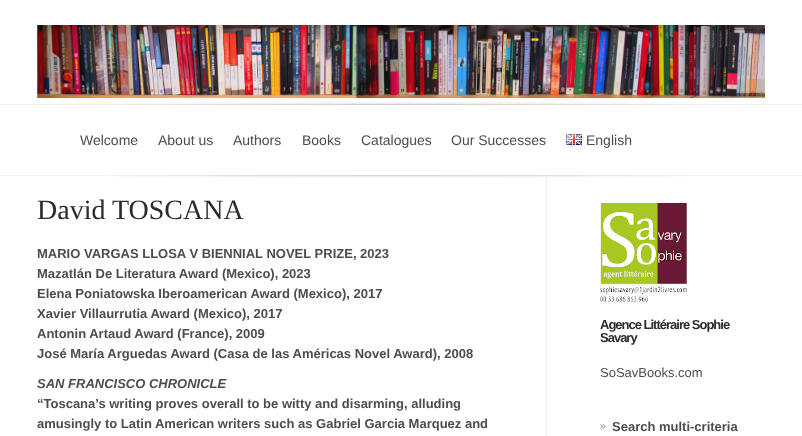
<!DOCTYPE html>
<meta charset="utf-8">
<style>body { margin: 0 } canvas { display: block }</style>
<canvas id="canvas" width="802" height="436"></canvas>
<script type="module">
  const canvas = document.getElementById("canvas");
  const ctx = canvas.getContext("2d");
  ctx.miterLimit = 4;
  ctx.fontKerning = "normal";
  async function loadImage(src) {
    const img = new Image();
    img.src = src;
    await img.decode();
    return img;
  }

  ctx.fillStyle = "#ffffff";
  ctx.fillRect(0, 0, 802, 436);
  ctx.drawImage(await loadImage("img1.png"), 37, 25, 728, 73);
  ctx.fillStyle = "#f1f1f1";
  ctx.fillRect(0, 104, 802, 1);
  ctx.fillStyle = "#f6f6f6";
  ctx.fillRect(0, 175, 802, 1);
  ctx.drawImage(await loadImage("img2.png"), 107, 102, 588, 3);
  ctx.font = "14px Liberation Sans";
  ctx.fillStyle = "#4d4d4d";
  ctx.fillText("Welcome", 80, 145);
  ctx.fillText("About us", 158, 145);
  ctx.fillText("Authors", 233, 145);
  ctx.fillText("Books", 302, 145);
  ctx.fillText("Catalogues", 361, 145);
  ctx.fillText("Our Successes", 451, 145);
  ctx.drawImage(await loadImage("img3.png"), 566, 134, 16, 11);
  ctx.fillText("English", 586, 145);
  ctx.drawImage(await loadImage("img4.png"), 108, 175, 580, 3);
  ctx.fillStyle = "#f1f1f1";
  ctx.fillRect(546, 177, 1, 259);
  ctx.font = "28px Liberation Serif";
  ctx.fillStyle = "#2b2b2b";
  ctx.fillText("David TOSCANA", 37, 219);
  ctx.font = "bold 13px Liberation Sans";
  ctx.fillStyle = "#4d4d4d";
  ctx.fillText("MARIO VARGAS LLOSA V BIENNIAL NOVEL PRIZE, 2023", 37, 258);
  ctx.fillText("Mazatlán De Literatura Award (Mexico), 2023", 37, 278);
  ctx.fillText("Elena Poniatowska Iberoamerican Award (Mexico), 2017", 37, 298);
  ctx.fillText("Xavier Villaurrutia Award (Mexico), 2017", 37, 318);
  ctx.fillText("Antonin Artaud Award (France), 2009", 37, 338);
  ctx.fillText("José María Arguedas Award (Casa de las Américas Novel Award), 2008", 37, 358);
  ctx.font = "italic bold 13px Liberation Sans";
  ctx.fillText("SAN FRANCISCO CHRONICLE", 37, 388);
  ctx.font = "bold 13px Liberation Sans";
  ctx.fillText("“Toscana’s writing proves overall to be witty and disarming, alluding", 37, 408);
  ctx.fillText("amusingly to Latin American writers such as Gabriel Garcia Marquez and", 37, 428);
  ctx.drawImage(await loadImage("img5.png"), 600, 203, 87, 99);
  ctx.letterSpacing = "-1px";
  ctx.fillStyle = "#2b2b2b";
  ctx.fillText("Agence Littéraire Sophie", 600, 329);
  ctx.fillText("Savary", 600, 342);
  ctx.letterSpacing = "0px";
  ctx.font = "13px Liberation Sans";
  ctx.fillStyle = "#4d4d4d";
  ctx.fillText("SoSavBooks.com", 600, 377);
  ctx.drawImage(await loadImage("img6.png"), 600, 424, 6, 5);
  ctx.font = "bold 13px Liberation Sans";
  ctx.fillText("Search multi-criteria", 612, 431);
</script>
